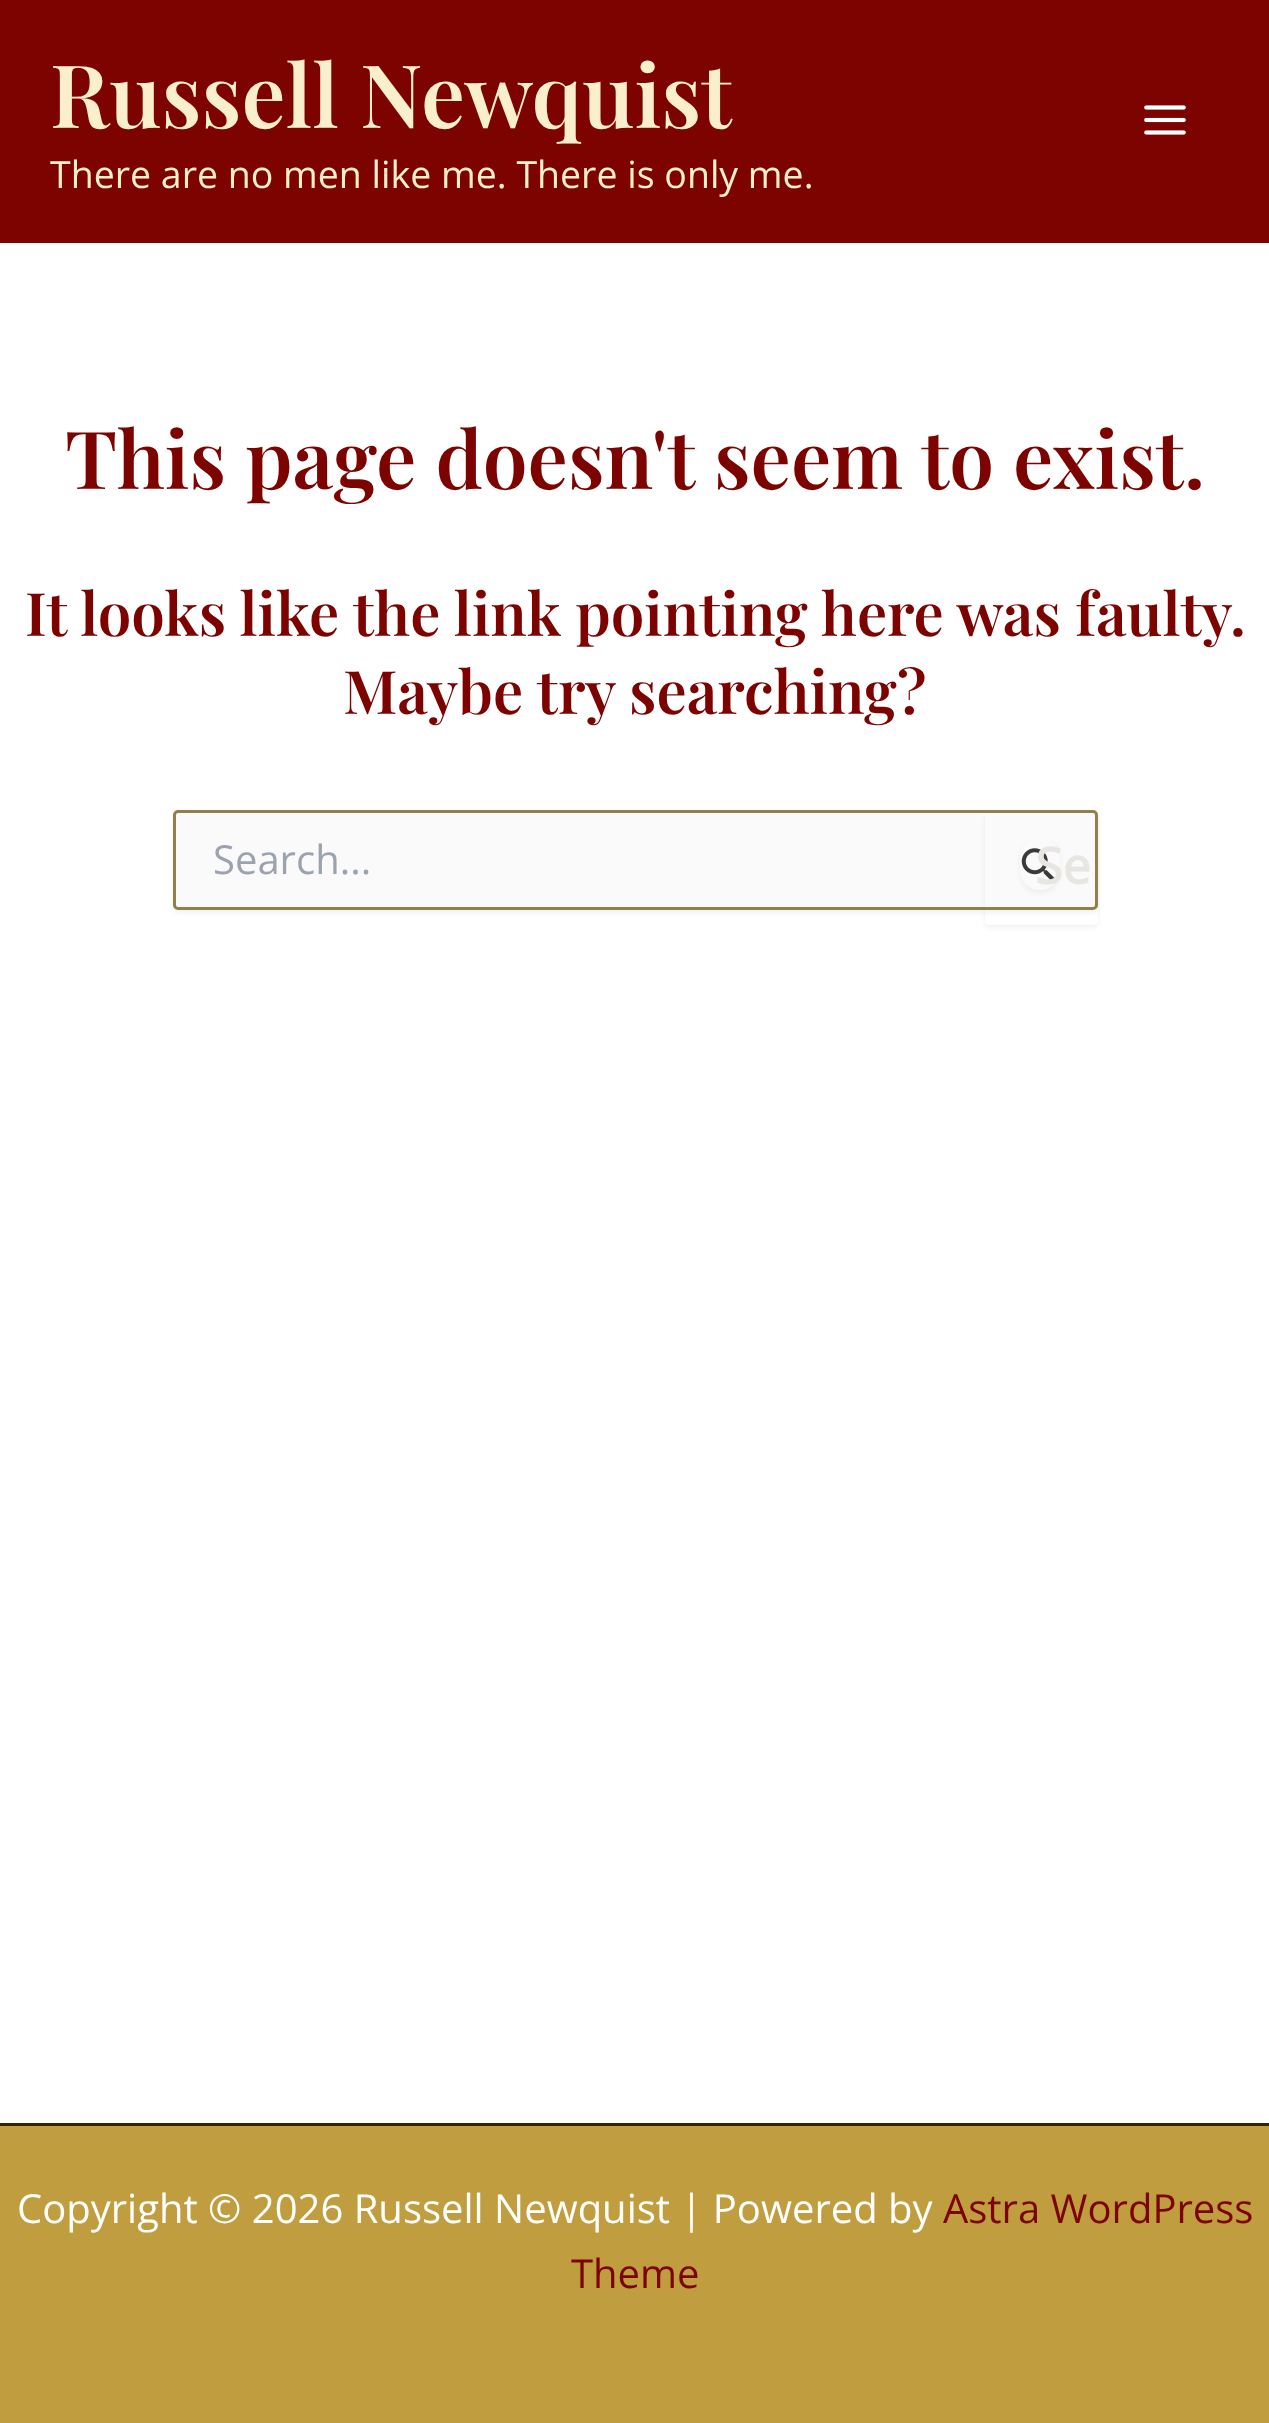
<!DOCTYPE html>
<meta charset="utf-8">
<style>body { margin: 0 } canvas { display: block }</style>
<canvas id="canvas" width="1269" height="2423"></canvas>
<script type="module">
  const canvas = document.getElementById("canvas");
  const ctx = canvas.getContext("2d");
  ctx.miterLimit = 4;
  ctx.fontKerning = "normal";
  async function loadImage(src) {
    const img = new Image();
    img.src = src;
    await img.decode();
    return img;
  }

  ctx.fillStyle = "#ffffff";
  ctx.fillRect(0, 0, 1269, 2423);
  ctx.fillStyle = "#7c0300";
  ctx.fillRect(0, 0, 1269, 243);
  ctx.font = "600 87.5px Playfair Display";
  ctx.fillStyle = "#f9efcd";
  ctx.fillText("Russell Newquist", 50, 128);
  ctx.font = "37.5px Open Sans";
  ctx.fillText("There are no men like me. There is only me.", 50, 188);
  ctx.drawImage(await loadImage("img1.png"), 1144, 105, 42, 30);
  ctx.font = "600 80px Playfair Display";
  ctx.fillStyle = "#7c0300";
  ctx.fillText("This page doesn't seem to exist.", 65, 489);
  ctx.font = "600 60px Playfair Display";
  ctx.fillText("It looks like the link pointing here was faulty.", 25, 636);
  ctx.fillText("Maybe try searching?", 343, 714);
  ctx.fillStyle = "rgba(0, 0, 0, 0.05)";
  ctx.filter = "blur(2.5px)";
  ctx.beginPath();
  ctx.roundRect(173, 813, 925, 100, 5);
  ctx.fill();
  ctx.filter = "none";
  ctx.fillStyle = "#fafafa";
  ctx.beginPath();
  ctx.roundRect(174.5, 811.5, 922, 97, 3.5);
  ctx.fill();
  ctx.strokeStyle = "#91804a";
  ctx.lineWidth = 3;
  ctx.stroke();
  ctx.font = "40px Open Sans";
  ctx.fillStyle = "#9ca3af";
  ctx.fillText("Search...", 213, 874);
  ctx.save();
  ctx.beginPath();
  ctx.moveTo(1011, 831);
  ctx.lineTo(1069, 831);
  ctx.lineTo(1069, 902);
  ctx.lineTo(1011, 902);
  ctx.closePath();
  ctx.moveTo(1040, 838);
  ctx.bezierCurveTo(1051, 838, 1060, 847, 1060, 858);
  ctx.lineTo(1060, 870);
  ctx.bezierCurveTo(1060, 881, 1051, 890, 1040, 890);
  ctx.bezierCurveTo(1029, 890, 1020, 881, 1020, 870);
  ctx.lineTo(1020, 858);
  ctx.bezierCurveTo(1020, 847, 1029, 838, 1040, 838);
  ctx.closePath();
  ctx.clip("evenodd");
  ctx.fillStyle = "rgba(0, 0, 0, 0.05)";
  ctx.filter = "blur(2.5px)";
  ctx.beginPath();
  ctx.roundRect(1020, 840, 40, 53, 20);
  ctx.fill();
  ctx.filter = "none";
  ctx.restore();
  ctx.drawImage(await loadImage("img2.png"), 1021, 848, 34, 36);
  ctx.save();
  ctx.beginPath();
  ctx.moveTo(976, 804);
  ctx.lineTo(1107, 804);
  ctx.lineTo(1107, 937);
  ctx.lineTo(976, 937);
  ctx.closePath();
  ctx.moveTo(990, 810);
  ctx.lineTo(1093, 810);
  ctx.bezierCurveTo(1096, 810, 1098, 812, 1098, 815);
  ctx.lineTo(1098, 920);
  ctx.bezierCurveTo(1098, 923, 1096, 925, 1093, 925);
  ctx.lineTo(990, 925);
  ctx.bezierCurveTo(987, 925, 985, 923, 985, 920);
  ctx.lineTo(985, 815);
  ctx.bezierCurveTo(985, 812, 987, 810, 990, 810);
  ctx.closePath();
  ctx.clip("evenodd");
  ctx.fillStyle = "rgba(0, 0, 0, 0.05)";
  ctx.filter = "blur(2.5px)";
  ctx.beginPath();
  ctx.roundRect(985, 813, 113, 115, 5);
  ctx.fill();
  ctx.filter = "none";
  ctx.restore();
  ctx.font = "bold 50px Open Sans";
  ctx.fillStyle = "#e7e6e2";
  ctx.fillText("Se", 1035, 884);
  ctx.fillStyle = "#c09d3e";
  ctx.fillRect(0, 2126, 1269, 297);
  ctx.fillStyle = "#302401";
  ctx.fillRect(0, 2123, 1269, 3);
  ctx.font = "40px Open Sans";
  ctx.fillStyle = "#ffffff";
  ctx.fillText("Copyright © 2026 Russell Newquist | Powered by", 17, 2223);
  ctx.fillStyle = "#7c0300";
  ctx.fillText("Astra WordPress", 943, 2223);
  ctx.fillText("Theme", 571, 2288);
</script>
